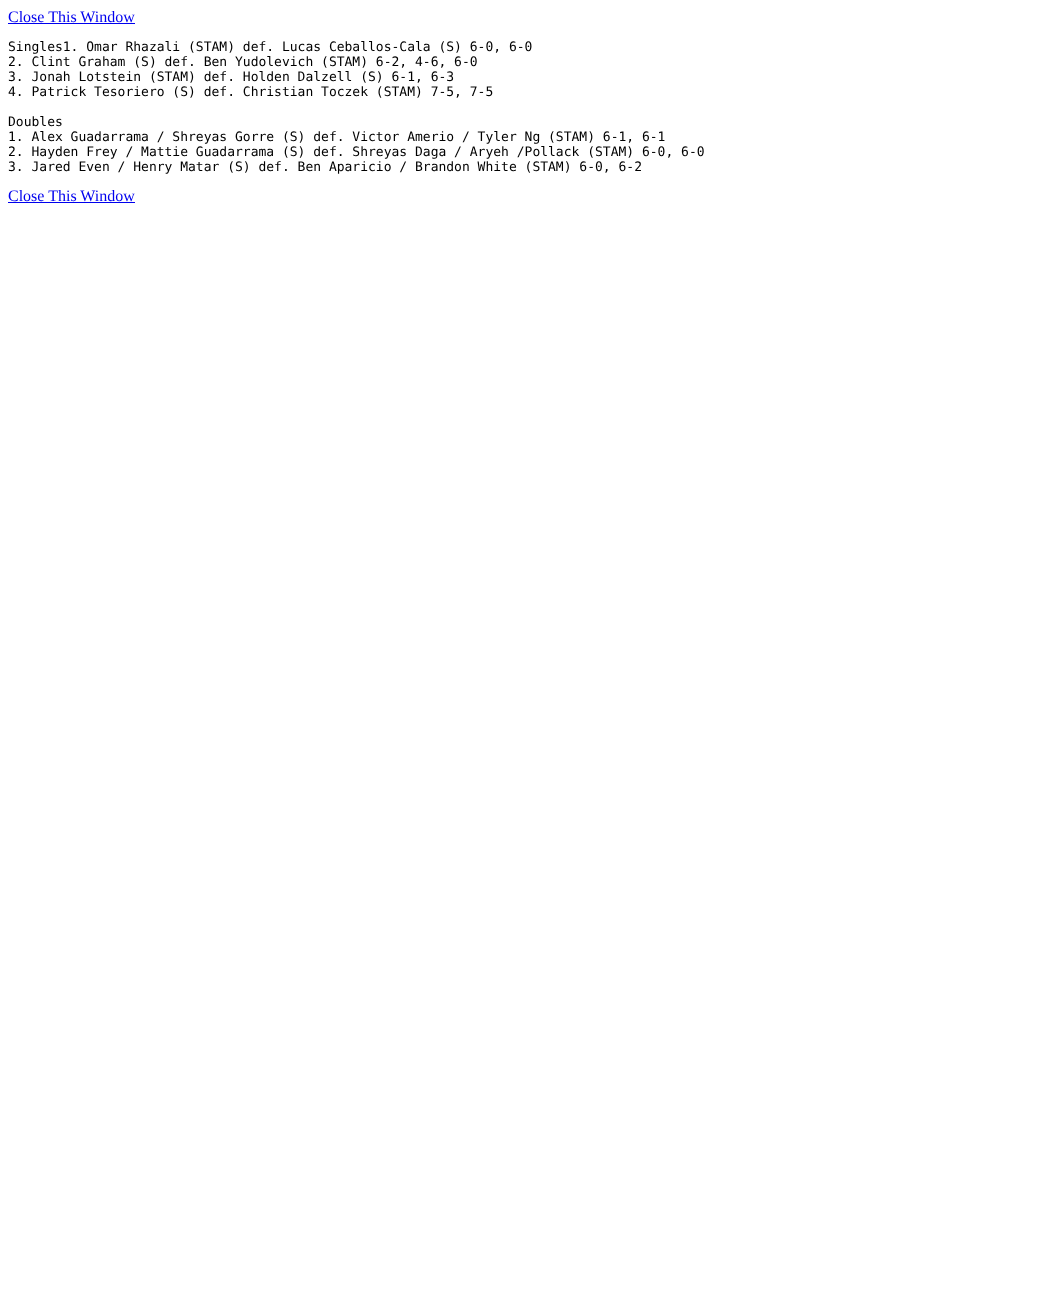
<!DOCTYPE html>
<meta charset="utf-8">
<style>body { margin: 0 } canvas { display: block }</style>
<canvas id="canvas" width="1048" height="1310"></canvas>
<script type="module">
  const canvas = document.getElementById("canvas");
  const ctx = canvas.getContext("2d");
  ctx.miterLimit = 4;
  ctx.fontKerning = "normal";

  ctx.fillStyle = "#ffffff";
  ctx.fillRect(0, 0, 1048, 1310);
  ctx.font = "16px Liberation Serif";
  ctx.fillStyle = "#0000ee";
  ctx.fillText("Close This Window", 8, 22);
  ctx.fillRect(8, 23, 127, 1);
  ctx.font = "13px DejaVu Sans Mono";
  ctx.fillStyle = "#000000";
  ctx.fillText("Singles1. Omar Rhazali (STAM) def. Lucas Ceballos-Cala (S) 6-0, 6-0", 8, 51);
  ctx.fillText("2. Clint Graham (S) def. Ben Yudolevich (STAM) 6-2, 4-6, 6-0", 8, 66);
  ctx.fillText("3. Jonah Lotstein (STAM) def. Holden Dalzell (S) 6-1, 6-3", 8, 81);
  ctx.fillText("4. Patrick Tesoriero (S) def. Christian Toczek (STAM) 7-5, 7-5", 8, 96);
  ctx.fillText("Doubles", 8, 126);
  ctx.fillText("1. Alex Guadarrama / Shreyas Gorre (S) def. Victor Amerio / Tyler Ng (STAM) 6-1, 6-1", 8, 141);
  ctx.fillText("2. Hayden Frey / Mattie Guadarrama (S) def. Shreyas Daga / Aryeh /Pollack (STAM) 6-0, 6-0", 8, 156);
  ctx.fillText("3. Jared Even / Henry Matar (S) def. Ben Aparicio / Brandon White (STAM) 6-0, 6-2", 8, 171);
  ctx.font = "16px Liberation Serif";
  ctx.fillStyle = "#0000ee";
  ctx.fillText("Close This Window", 8, 201);
  ctx.fillRect(8, 202, 127, 1);
</script>
